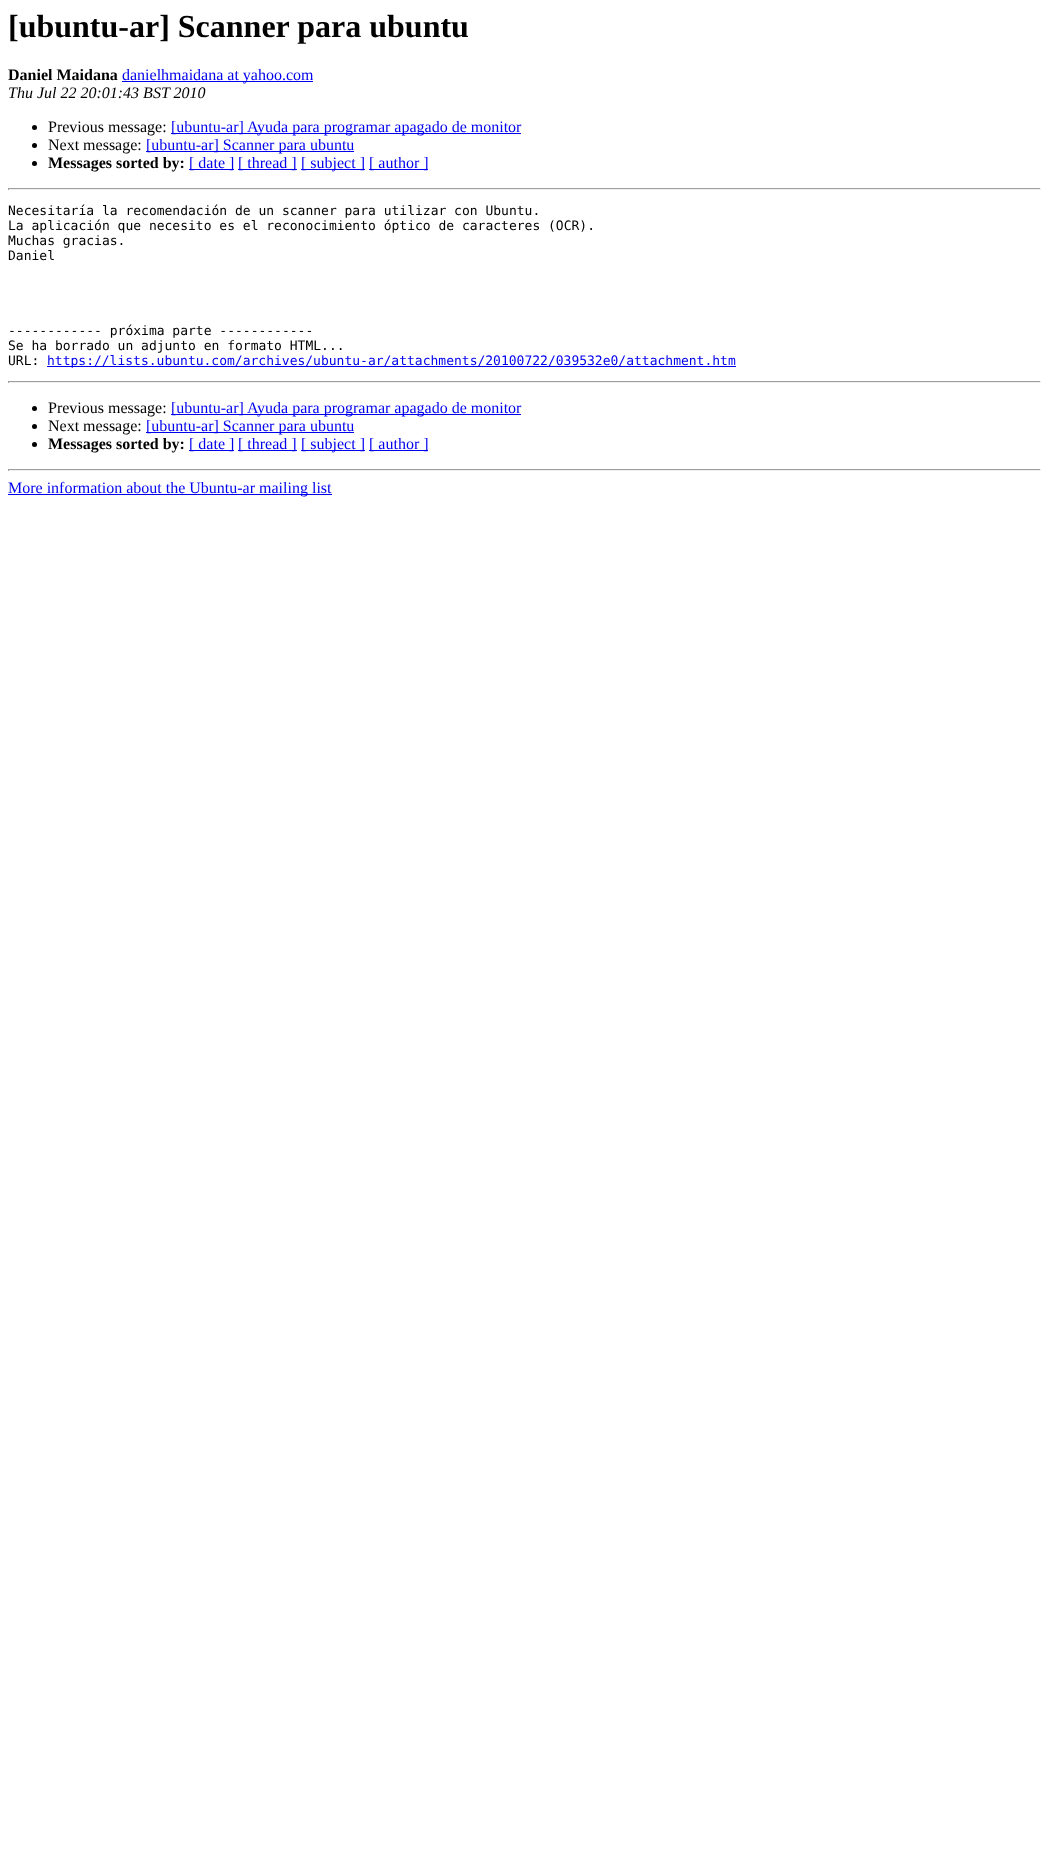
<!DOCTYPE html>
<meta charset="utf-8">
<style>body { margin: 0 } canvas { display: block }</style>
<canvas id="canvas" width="1049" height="1870"></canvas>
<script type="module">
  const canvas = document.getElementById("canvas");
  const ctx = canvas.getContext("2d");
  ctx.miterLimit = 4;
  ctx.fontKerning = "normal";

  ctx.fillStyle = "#ffffff";
  ctx.fillRect(0, 0, 1049, 1870);
  ctx.font = "bold 32px Liberation Serif";
  ctx.fillStyle = "#000000";
  ctx.fillText("[ubuntu-ar] Scanner para ubuntu", 8, 37);
  ctx.font = "bold 16px Liberation Serif";
  ctx.fillText("Daniel Maidana", 8, 80);
  ctx.fillStyle = "#0000ee";
  ctx.fillRect(122, 81, 191, 1);
  ctx.font = "16px Liberation Serif";
  ctx.fillText("danielhmaidana at yahoo.com", 122, 80);
  ctx.font = "italic 16px Liberation Serif";
  ctx.fillStyle = "#000000";
  ctx.fillText("Thu Jul 22 20:01:43 BST 2010", 8, 98);
  ctx.beginPath();
  ctx.arc(34.5, 127.5, 2.5, 0, Math.PI * 2);
  ctx.fill();
  ctx.font = "16px Liberation Serif";
  ctx.fillText("Previous message:", 48, 132);
  ctx.fillStyle = "#0000ee";
  ctx.fillRect(171, 133, 350, 1);
  ctx.fillText("[ubuntu-ar] Ayuda para programar apagado de monitor", 171, 132);
  ctx.fillStyle = "#000000";
  ctx.beginPath();
  ctx.arc(34.5, 145.5, 2.5, 0, Math.PI * 2);
  ctx.fill();
  ctx.fillText("Next message:", 48, 150);
  ctx.fillStyle = "#0000ee";
  ctx.fillRect(146, 151, 208, 1);
  ctx.fillText("[ubuntu-ar] Scanner para ubuntu", 146, 150);
  ctx.fillStyle = "#000000";
  ctx.beginPath();
  ctx.arc(34.5, 163.5, 2.5, 0, Math.PI * 2);
  ctx.fill();
  ctx.font = "bold 16px Liberation Serif";
  ctx.fillText("Messages sorted by:", 48, 168);
  ctx.fillStyle = "#0000ee";
  ctx.fillRect(189, 169, 45, 1);
  ctx.font = "16px Liberation Serif";
  ctx.fillText("[ date ]", 189, 168);
  ctx.fillRect(238, 169, 59, 1);
  ctx.fillText("[ thread ]", 238, 168);
  ctx.fillRect(301, 169, 64, 1);
  ctx.fillText("[ subject ]", 301, 168);
  ctx.fillRect(369, 169, 59, 1);
  ctx.fillText("[ author ]", 369, 168);
  ctx.fillStyle = "#9f9f9f";
  ctx.fillRect(8, 188, 1033, 1);
  ctx.fillStyle = "#eeeeee";
  ctx.fillRect(1040, 188, 1, 2);
  ctx.fillRect(8, 189, 1033, 1);
  ctx.fillStyle = "#9f9f9f";
  ctx.fillRect(8, 188, 1, 2);
  ctx.font = "13px DejaVu Sans Mono";
  ctx.fillStyle = "#000000";
  ctx.fillText("Necesitaría la recomendación de un scanner para utilizar con Ubuntu.", 8, 215);
  ctx.fillText("La aplicación que necesito es el reconocimiento óptico de caracteres (OCR).", 8, 230);
  ctx.fillText("Muchas gracias.", 8, 245);
  ctx.fillText("Daniel", 8, 260);
  ctx.fillText("------------ próxima parte ------------", 8, 335);
  ctx.fillText("Se ha borrado un adjunto en formato HTML...", 8, 350);
  ctx.fillText("URL:", 8, 365);
  ctx.fillStyle = "#0000ee";
  ctx.fillRect(47, 366, 689, 1);
  ctx.fillText("https://lists.ubuntu.com/archives/ubuntu-ar/attachments/20100722/039532e0/attachment.htm", 47, 365);
  ctx.fillStyle = "#9f9f9f";
  ctx.fillRect(8, 381, 1033, 1);
  ctx.fillStyle = "#eeeeee";
  ctx.fillRect(1040, 381, 1, 2);
  ctx.fillRect(8, 382, 1033, 1);
  ctx.fillStyle = "#9f9f9f";
  ctx.fillRect(8, 381, 1, 2);
  ctx.fillStyle = "#000000";
  ctx.beginPath();
  ctx.arc(34.5, 408.5, 2.5, 0, Math.PI * 2);
  ctx.fill();
  ctx.font = "16px Liberation Serif";
  ctx.fillText("Previous message:", 48, 413);
  ctx.fillStyle = "#0000ee";
  ctx.fillRect(171, 414, 350, 1);
  ctx.fillText("[ubuntu-ar] Ayuda para programar apagado de monitor", 171, 413);
  ctx.fillStyle = "#000000";
  ctx.beginPath();
  ctx.arc(34.5, 426.5, 2.5, 0, Math.PI * 2);
  ctx.fill();
  ctx.fillText("Next message:", 48, 431);
  ctx.fillStyle = "#0000ee";
  ctx.fillRect(146, 432, 208, 1);
  ctx.fillText("[ubuntu-ar] Scanner para ubuntu", 146, 431);
  ctx.fillStyle = "#000000";
  ctx.beginPath();
  ctx.arc(34.5, 444.5, 2.5, 0, Math.PI * 2);
  ctx.fill();
  ctx.font = "bold 16px Liberation Serif";
  ctx.fillText("Messages sorted by:", 48, 449);
  ctx.fillStyle = "#0000ee";
  ctx.fillRect(189, 450, 45, 1);
  ctx.font = "16px Liberation Serif";
  ctx.fillText("[ date ]", 189, 449);
  ctx.fillRect(238, 450, 59, 1);
  ctx.fillText("[ thread ]", 238, 449);
  ctx.fillRect(301, 450, 64, 1);
  ctx.fillText("[ subject ]", 301, 449);
  ctx.fillRect(369, 450, 59, 1);
  ctx.fillText("[ author ]", 369, 449);
  ctx.fillStyle = "#9f9f9f";
  ctx.fillRect(8, 469, 1033, 1);
  ctx.fillStyle = "#eeeeee";
  ctx.fillRect(1040, 469, 1, 2);
  ctx.fillRect(8, 470, 1033, 1);
  ctx.fillStyle = "#9f9f9f";
  ctx.fillRect(8, 469, 1, 2);
  ctx.fillStyle = "#0000ee";
  ctx.fillRect(8, 494, 324, 1);
  ctx.fillText("More information about the Ubuntu-ar mailing list", 8, 493);
</script>
